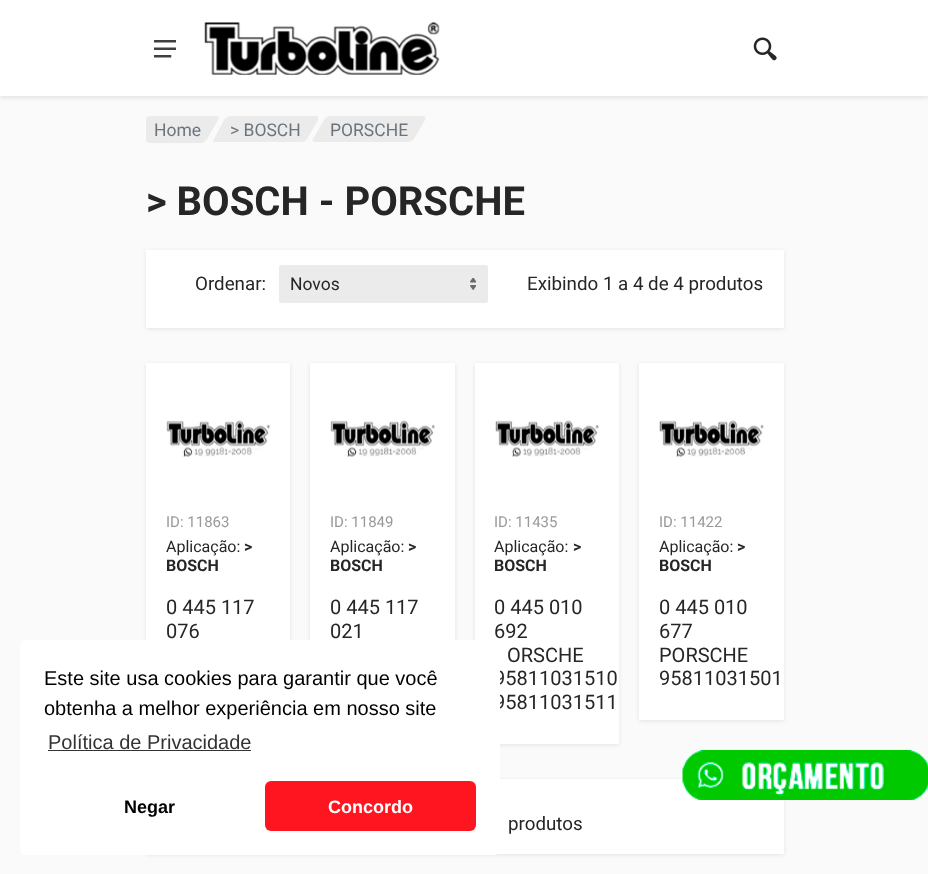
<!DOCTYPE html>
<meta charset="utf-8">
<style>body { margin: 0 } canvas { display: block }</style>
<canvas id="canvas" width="928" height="874"></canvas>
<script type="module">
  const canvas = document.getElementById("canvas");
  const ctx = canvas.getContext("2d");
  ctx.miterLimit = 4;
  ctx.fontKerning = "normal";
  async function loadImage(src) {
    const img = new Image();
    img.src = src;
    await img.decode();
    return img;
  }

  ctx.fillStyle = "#fafafa";
  ctx.fillRect(0, 0, 928, 874);
  ctx.fillStyle = "rgba(0, 0, 0, 0.09)";
  ctx.filter = "blur(2px)";
  ctx.beginPath();
  ctx.rect(0, 1, 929, 97);
  ctx.fill();
  ctx.filter = "none";
  ctx.fillStyle = "#ffffff";
  ctx.fillRect(0, 0, 928, 96);
  ctx.drawImage(await loadImage("img1.png"), 154, 40, 22, 18);
  ctx.drawImage(await loadImage("img2.png"), 204, 22, 236, 53);
  ctx.drawImage(await loadImage("img3.png"), 753, 37, 24, 24);
  ctx.fillStyle = "#ebebeb";
  ctx.beginPath();
  ctx.moveTo(165, 116);
  ctx.lineTo(217, 116);
  ctx.bezierCurveTo(219, 116, 219, 118, 218, 120);
  ctx.lineTo(207, 139);
  ctx.bezierCurveTo(206, 141, 204, 142, 201, 142);
  ctx.lineTo(149, 142);
  ctx.bezierCurveTo(147, 142, 147, 141, 148, 139);
  ctx.lineTo(159, 120);
  ctx.bezierCurveTo(160, 118, 162, 116, 165, 116);
  ctx.closePath();
  ctx.fill();
  ctx.beginPath();
  ctx.roundRect(146, 116, 59, 27, 4);
  ctx.fill();
  ctx.font = "17.5px Roboto";
  ctx.fillStyle = "#6c757d";
  ctx.fillText("Home", 154, 136);
  ctx.fillStyle = "#ebebeb";
  ctx.beginPath();
  ctx.moveTo(230, 116);
  ctx.lineTo(316, 116);
  ctx.bezierCurveTo(318, 116, 319, 118, 318, 120);
  ctx.lineTo(307, 139);
  ctx.bezierCurveTo(306, 141, 303, 142, 301, 142);
  ctx.lineTo(215, 142);
  ctx.bezierCurveTo(213, 142, 212, 141, 214, 139);
  ctx.lineTo(224, 120);
  ctx.bezierCurveTo(226, 118, 228, 116, 230, 116);
  ctx.closePath();
  ctx.fill();
  ctx.fillStyle = "#6c757d";
  ctx.fillText("> BOSCH", 230, 136);
  ctx.fillStyle = "#ebebeb";
  ctx.beginPath();
  ctx.moveTo(330, 116);
  ctx.lineTo(423, 116);
  ctx.bezierCurveTo(425, 116, 426, 118, 425, 120);
  ctx.lineTo(414, 139);
  ctx.bezierCurveTo(413, 141, 410, 142, 408, 142);
  ctx.lineTo(315, 142);
  ctx.bezierCurveTo(313, 142, 312, 141, 313, 139);
  ctx.lineTo(324, 120);
  ctx.bezierCurveTo(325, 118, 328, 116, 330, 116);
  ctx.closePath();
  ctx.fill();
  ctx.fillStyle = "#6c757d";
  ctx.fillText("PORSCHE", 330, 136);
  ctx.font = "bold 40px Roboto";
  ctx.fillStyle = "#262626";
  ctx.fillText("> BOSCH - PORSCHE", 146, 215);
  ctx.fillStyle = "rgba(0, 0, 0, 0.09)";
  ctx.filter = "blur(2px)";
  ctx.beginPath();
  ctx.rect(146, 251, 638, 78);
  ctx.fill();
  ctx.filter = "none";
  ctx.fillStyle = "#ffffff";
  ctx.fillRect(146, 250, 638, 78);
  ctx.font = "18.75px Roboto";
  ctx.fillStyle = "#262626";
  ctx.fillText("Ordenar:", 195, 290);
  ctx.fillStyle = "#ebebeb";
  ctx.beginPath();
  ctx.roundRect(279, 265, 209, 38, 2.5);
  ctx.fill();
  ctx.drawImage(await loadImage("img4.png"), 470, 278, 6, 12);
  ctx.beginPath();
  ctx.roundRect(279.5, 265.5, 208, 37, 2);
  ctx.strokeStyle = "#ebebeb";
  ctx.stroke();
  ctx.font = "17.5px Roboto";
  ctx.fillStyle = "#262626";
  ctx.fillText("Novos", 290, 290);
  ctx.font = "18.75px Roboto";
  ctx.fillText("Exibindo 1 a 4 de 4 produtos", 527, 290);
  ctx.fillStyle = "rgba(0, 0, 0, 0.09)";
  ctx.filter = "blur(2px)";
  ctx.beginPath();
  ctx.rect(146, 364, 144, 357);
  ctx.fill();
  ctx.filter = "none";
  ctx.fillStyle = "#ffffff";
  ctx.fillRect(146, 363, 144, 277);
  ctx.drawImage(await loadImage("img5.png"), 166, 420, 105, 37);
  ctx.font = "15px Roboto";
  ctx.fillStyle = "#999999";
  ctx.fillText("ID: 11863", 166, 527);
  ctx.font = "16px Roboto";
  ctx.fillStyle = "#262626";
  ctx.fillText("Aplicação:", 166, 552);
  ctx.font = "bold 16px Roboto";
  ctx.fillText(">", 244, 552);
  ctx.fillText("BOSCH", 166, 571);
  ctx.font = "20px Roboto";
  ctx.fillText("0 445 117", 166, 614);
  ctx.fillText("076", 166, 638);
  ctx.fillStyle = "rgba(0, 0, 0, 0.09)";
  ctx.filter = "blur(2px)";
  ctx.beginPath();
  ctx.rect(310, 364, 145, 381);
  ctx.fill();
  ctx.filter = "none";
  ctx.fillStyle = "#ffffff";
  ctx.fillRect(310, 363, 145, 277);
  ctx.drawImage(await loadImage("img6.png"), 330, 420, 105, 37);
  ctx.font = "15px Roboto";
  ctx.fillStyle = "#999999";
  ctx.fillText("ID: 11849", 330, 527);
  ctx.font = "16px Roboto";
  ctx.fillStyle = "#262626";
  ctx.fillText("Aplicação:", 330, 552);
  ctx.font = "bold 16px Roboto";
  ctx.fillText(">", 408, 552);
  ctx.fillText("BOSCH", 330, 571);
  ctx.font = "20px Roboto";
  ctx.fillText("0 445 117", 330, 614);
  ctx.fillText("021", 330, 638);
  ctx.fillStyle = "rgba(0, 0, 0, 0.09)";
  ctx.filter = "blur(2px)";
  ctx.beginPath();
  ctx.rect(475, 364, 144, 381);
  ctx.fill();
  ctx.filter = "none";
  ctx.fillStyle = "#ffffff";
  ctx.fillRect(475, 363, 144, 381);
  ctx.drawImage(await loadImage("img7.png"), 495, 420, 104, 37);
  ctx.font = "15px Roboto";
  ctx.fillStyle = "#999999";
  ctx.fillText("ID: 11435", 494, 527);
  ctx.font = "16px Roboto";
  ctx.fillStyle = "#262626";
  ctx.fillText("Aplicação:", 494, 552);
  ctx.font = "bold 16px Roboto";
  ctx.fillText(">", 573, 552);
  ctx.fillText("BOSCH", 494, 571);
  ctx.font = "20px Roboto";
  ctx.fillText("0 445 010", 494, 614);
  ctx.fillText("692", 494, 638);
  ctx.fillText("ORSCHE", 507, 662);
  ctx.fillText("95811031510", 494, 685);
  ctx.fillText("95811031511", 494, 709);
  ctx.fillStyle = "rgba(0, 0, 0, 0.09)";
  ctx.filter = "blur(2px)";
  ctx.beginPath();
  ctx.rect(639, 364, 145, 357);
  ctx.fill();
  ctx.filter = "none";
  ctx.fillStyle = "#ffffff";
  ctx.fillRect(639, 363, 145, 357);
  ctx.drawImage(await loadImage("img8.png"), 659, 420, 105, 37);
  ctx.font = "15px Roboto";
  ctx.fillStyle = "#999999";
  ctx.fillText("ID: 11422", 659, 527);
  ctx.font = "16px Roboto";
  ctx.fillStyle = "#262626";
  ctx.fillText("Aplicação:", 659, 552);
  ctx.font = "bold 16px Roboto";
  ctx.fillText(">", 737, 552);
  ctx.fillText("BOSCH", 659, 571);
  ctx.font = "20px Roboto";
  ctx.fillText("0 445 010", 659, 614);
  ctx.fillText("677", 659, 638);
  ctx.fillText("PORSCHE", 659, 662);
  ctx.fillText("95811031501", 659, 685);
  ctx.fillStyle = "rgba(0, 0, 0, 0.09)";
  ctx.filter = "blur(2px)";
  ctx.beginPath();
  ctx.rect(146, 780, 638, 75);
  ctx.fill();
  ctx.filter = "none";
  ctx.fillStyle = "#ffffff";
  ctx.fillRect(497, 779, 287, 75);
  ctx.font = "18.75px Roboto";
  ctx.fillStyle = "#262626";
  ctx.fillText("produtos", 508, 830);
  ctx.fillStyle = "#ffffff";
  ctx.beginPath();
  ctx.roundRect(20, 640, 480, 215, 6);
  ctx.fill();
  ctx.font = "20px Liberation Sans";
  ctx.fillStyle = "#000000";
  ctx.fillText("Este site usa cookies para garantir que você", 44, 685);
  ctx.fillText("obtenha a melhor experiência em nosso site", 44, 715);
  ctx.fillStyle = "#333333";
  ctx.fillText("Política de Privacidade", 48, 749);
  ctx.fillRect(48, 750, 203, 1);
  ctx.font = "bold 18px Liberation Sans";
  ctx.fillStyle = "#000000";
  ctx.fillText("Negar", 124, 813);
  ctx.fillStyle = "#ff151f";
  ctx.beginPath();
  ctx.roundRect(265, 781, 211, 50, 6);
  ctx.fill();
  ctx.fillStyle = "#ffffff";
  ctx.fillText("Concordo", 328, 813);
  ctx.drawImage(await loadImage("img9.png"), 682, 750, 246, 50);
</script>
